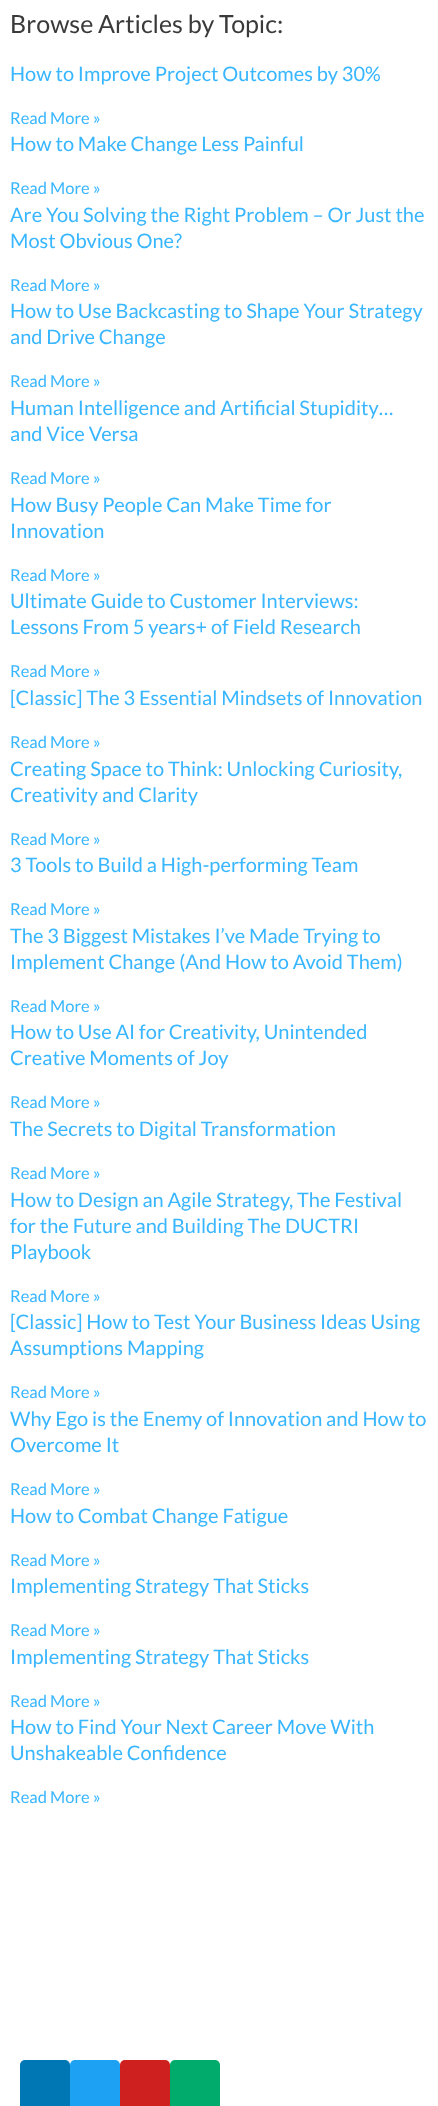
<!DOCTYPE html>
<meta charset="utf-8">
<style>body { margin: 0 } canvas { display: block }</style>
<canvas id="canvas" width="438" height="2106"></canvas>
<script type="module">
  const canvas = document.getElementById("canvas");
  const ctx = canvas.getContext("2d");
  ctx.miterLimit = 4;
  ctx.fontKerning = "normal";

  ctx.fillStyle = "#ffffff";
  ctx.fillRect(0, 0, 438, 2106);
  ctx.font = "25px Lato";
  ctx.fillStyle = "#3a3a3a";
  ctx.fillText("Browse Articles by Topic:", 10, 33);
  ctx.font = "20px Lato";
  ctx.fillStyle = "#38b6ff";
  ctx.fillText("How to Improve Project Outcomes by 30%", 10, 81);
  ctx.font = "16.5px Lato";
  ctx.fillText("Read More »", 10, 124);
  ctx.font = "20px Lato";
  ctx.fillText("How to Make Change Less Painful", 10, 151);
  ctx.font = "16.5px Lato";
  ctx.fillText("Read More »", 10, 194);
  ctx.font = "20px Lato";
  ctx.fillText("Are You Solving the Right Problem – Or Just the", 10, 222);
  ctx.fillText("Most Obvious One?", 10, 248);
  ctx.font = "16.5px Lato";
  ctx.fillText("Read More »", 10, 291);
  ctx.font = "20px Lato";
  ctx.fillText("How to Use Backcasting to Shape Your Strategy", 10, 318);
  ctx.fillText("and Drive Change", 10, 344);
  ctx.font = "16.5px Lato";
  ctx.fillText("Read More »", 10, 387);
  ctx.font = "20px Lato";
  ctx.fillText("Human Intelligence and Artificial Stupidity…", 10, 415);
  ctx.fillText("and Vice Versa", 10, 441);
  ctx.font = "16.5px Lato";
  ctx.fillText("Read More »", 10, 484);
  ctx.font = "20px Lato";
  ctx.fillText("How Busy People Can Make Time for", 10, 512);
  ctx.fillText("Innovation", 10, 538);
  ctx.font = "16.5px Lato";
  ctx.fillText("Read More »", 10, 581);
  ctx.font = "20px Lato";
  ctx.fillText("Ultimate Guide to Customer Interviews:", 10, 608);
  ctx.fillText("Lessons From 5 years+ of Field Research", 10, 634);
  ctx.font = "16.5px Lato";
  ctx.fillText("Read More »", 10, 677);
  ctx.font = "20px Lato";
  ctx.fillText("[Classic] The 3 Essential Mindsets of Innovation", 10, 705);
  ctx.font = "16.5px Lato";
  ctx.fillText("Read More »", 10, 748);
  ctx.font = "20px Lato";
  ctx.fillText("Creating Space to Think: Unlocking Curiosity,", 10, 776);
  ctx.fillText("Creativity and Clarity", 10, 802);
  ctx.font = "16.5px Lato";
  ctx.fillText("Read More »", 10, 845);
  ctx.font = "20px Lato";
  ctx.fillText("3 Tools to Build a High-performing Team", 10, 872);
  ctx.font = "16.5px Lato";
  ctx.fillText("Read More »", 10, 915);
  ctx.font = "20px Lato";
  ctx.fillText("The 3 Biggest Mistakes I’ve Made Trying to", 10, 943);
  ctx.fillText("Implement Change (And How to Avoid Them)", 10, 969);
  ctx.font = "16.5px Lato";
  ctx.fillText("Read More »", 10, 1012);
  ctx.font = "20px Lato";
  ctx.fillText("How to Use AI for Creativity, Unintended", 10, 1039);
  ctx.fillText("Creative Moments of Joy", 10, 1065);
  ctx.font = "16.5px Lato";
  ctx.fillText("Read More »", 10, 1108);
  ctx.font = "20px Lato";
  ctx.fillText("The Secrets to Digital Transformation", 10, 1136);
  ctx.font = "16.5px Lato";
  ctx.fillText("Read More »", 10, 1179);
  ctx.font = "20px Lato";
  ctx.fillText("How to Design an Agile Strategy, The Festival", 10, 1207);
  ctx.fillText("for the Future and Building The DUCTRI", 10, 1233);
  ctx.fillText("Playbook", 10, 1259);
  ctx.font = "16.5px Lato";
  ctx.fillText("Read More »", 10, 1302);
  ctx.font = "20px Lato";
  ctx.fillText("[Classic] How to Test Your Business Ideas Using", 10, 1329);
  ctx.fillText("Assumptions Mapping", 10, 1355);
  ctx.font = "16.5px Lato";
  ctx.fillText("Read More »", 10, 1398);
  ctx.font = "20px Lato";
  ctx.fillText("Why Ego is the Enemy of Innovation and How to", 10, 1426);
  ctx.fillText("Overcome It", 10, 1452);
  ctx.font = "16.5px Lato";
  ctx.fillText("Read More »", 10, 1495);
  ctx.font = "20px Lato";
  ctx.fillText("How to Combat Change Fatigue", 10, 1523);
  ctx.font = "16.5px Lato";
  ctx.fillText("Read More »", 10, 1566);
  ctx.font = "20px Lato";
  ctx.fillText("Implementing Strategy That Sticks", 10, 1593);
  ctx.font = "16.5px Lato";
  ctx.fillText("Read More »", 10, 1636);
  ctx.font = "20px Lato";
  ctx.fillText("Implementing Strategy That Sticks", 10, 1664);
  ctx.font = "16.5px Lato";
  ctx.fillText("Read More »", 10, 1707);
  ctx.font = "20px Lato";
  ctx.fillText("How to Find Your Next Career Move With", 10, 1734);
  ctx.fillText("Unshakeable Confidence", 10, 1760);
  ctx.font = "16.5px Lato";
  ctx.fillText("Read More »", 10, 1803);
  ctx.fillStyle = "#0077b5";
  ctx.beginPath();
  ctx.roundRect(20, 2060, 50, 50, 5);
  ctx.fill();
  ctx.fillStyle = "#1da1f2";
  ctx.beginPath();
  ctx.roundRect(70, 2060, 50, 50, 5);
  ctx.fill();
  ctx.fillStyle = "#cd201f";
  ctx.beginPath();
  ctx.roundRect(120, 2060, 50, 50, 5);
  ctx.fill();
  ctx.fillStyle = "#00ab6b";
  ctx.beginPath();
  ctx.roundRect(170, 2060, 50, 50, 5);
  ctx.fill();
</script>
